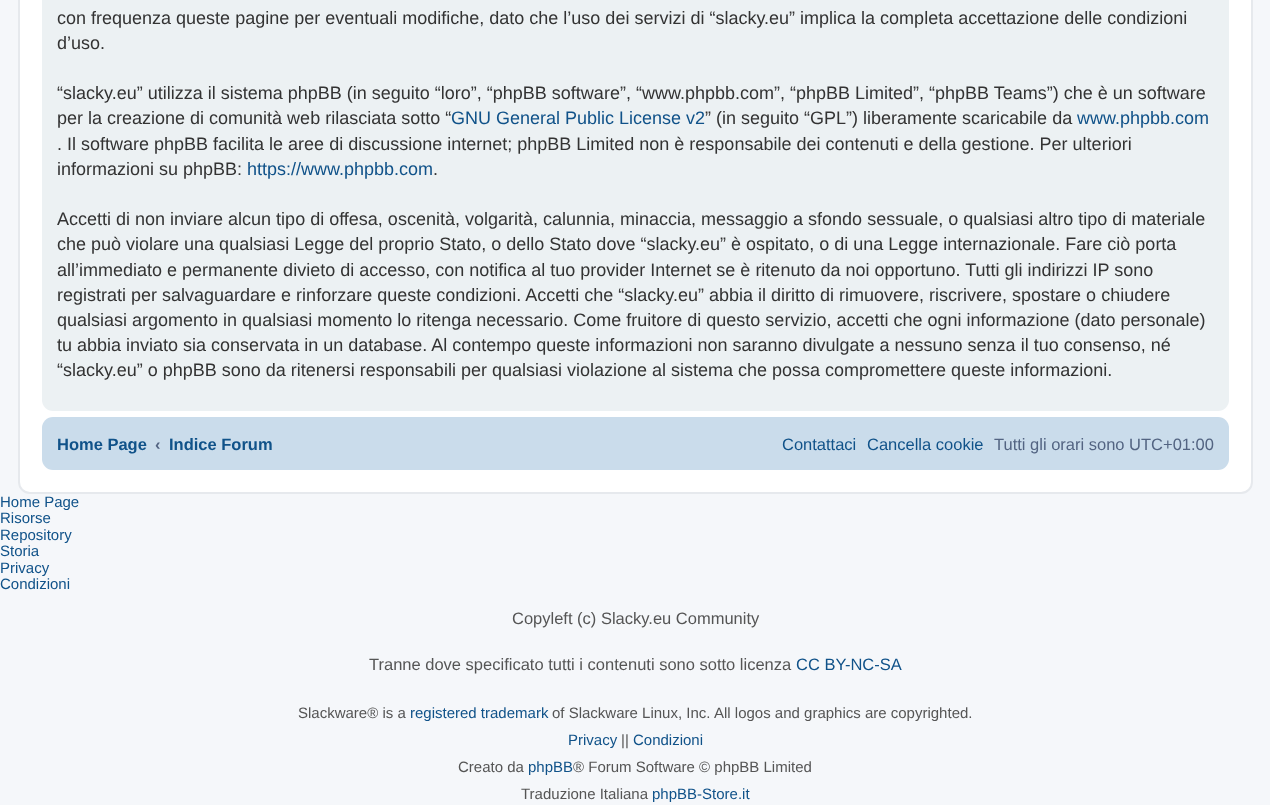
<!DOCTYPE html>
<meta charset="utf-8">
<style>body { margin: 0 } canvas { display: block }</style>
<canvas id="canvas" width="1270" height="805"></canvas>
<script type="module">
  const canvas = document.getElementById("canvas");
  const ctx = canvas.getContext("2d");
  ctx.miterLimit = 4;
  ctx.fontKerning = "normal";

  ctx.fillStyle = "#f5f7fa";
  ctx.fillRect(0, 0, 1270, 805);
  ctx.fillStyle = "#ffffff";
  ctx.beginPath();
  ctx.roundRect(19, -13, 1233, 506, 11);
  ctx.fill();
  ctx.strokeStyle = "#e6e9ed";
  ctx.lineWidth = 2;
  ctx.stroke();
  ctx.fillStyle = "#ecf1f3";
  ctx.beginPath();
  ctx.roundRect(42, -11, 1187, 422, 11);
  ctx.fill();
  ctx.font = "18px Liberation Sans";
  ctx.fillStyle = "#333333";
  ctx.fillText("con frequenza queste pagine per eventuali modifiche, dato che l’uso dei servizi di “slacky.eu” implica la completa accettazione delle condizioni", 57, 24);
  ctx.fillText("d’uso.", 57, 49);
  ctx.fillText("“slacky.eu” utilizza il sistema phpBB (in seguito “loro”, “phpBB software”, “www.phpbb.com”, “phpBB Limited”, “phpBB Teams”) che è un software", 57, 99);
  ctx.fillText("per la creazione di comunità web rilasciata sotto “", 57, 124);
  ctx.fillStyle = "#105289";
  ctx.fillText("GNU General Public License v2", 451, 124);
  ctx.fillStyle = "#333333";
  ctx.fillText("” (in seguito “GPL”) liberamente scaricabile da", 705, 124);
  ctx.fillStyle = "#105289";
  ctx.fillText("www.phpbb.com", 1077, 124);
  ctx.fillStyle = "#333333";
  ctx.fillText(". Il software phpBB facilita le aree di discussione internet; phpBB Limited non è responsabile dei contenuti e della gestione. Per ulteriori", 57, 150);
  ctx.fillText("informazioni su phpBB:", 57, 175);
  ctx.fillStyle = "#105289";
  ctx.fillText("https://www.phpbb.com", 247, 175);
  ctx.fillStyle = "#333333";
  ctx.fillText(".", 433, 175);
  ctx.fillText("Accetti di non inviare alcun tipo di offesa, oscenità, volgarità, calunnia, minaccia, messaggio a sfondo sessuale, o qualsiasi altro tipo di materiale", 57, 225);
  ctx.fillText("che può violare una qualsiasi Legge del proprio Stato, o dello Stato dove “slacky.eu” è ospitato, o di una Legge internazionale. Fare ciò porta", 57, 250);
  ctx.fillText("all’immediato e permanente divieto di accesso, con notifica al tuo provider Internet se è ritenuto da noi opportuno. Tutti gli indirizzi IP sono", 57, 276);
  ctx.fillText("registrati per salvaguardare e rinforzare queste condizioni. Accetti che “slacky.eu” abbia il diritto di rimuovere, riscrivere, spostare o chiudere", 57, 301);
  ctx.fillText("qualsiasi argomento in qualsiasi momento lo ritenga necessario. Come fruitore di questo servizio, accetti che ogni informazione (dato personale)", 57, 326);
  ctx.fillText("tu abbia inviato sia conservata in un database. Al contempo queste informazioni non saranno divulgate a nessuno senza il tuo consenso, né", 57, 351);
  ctx.fillText("“slacky.eu” o phpBB sono da ritenersi responsabili per qualsiasi violazione al sistema che possa compromettere queste informazioni.", 57, 376);
  ctx.fillStyle = "#cadceb";
  ctx.beginPath();
  ctx.roundRect(42, 417, 1187, 53, 11);
  ctx.fill();
  ctx.font = "bold 16.5px Liberation Sans";
  ctx.fillStyle = "#105289";
  ctx.fillText("Home Page", 57, 450);
  ctx.fillStyle = "#536482";
  ctx.fillText("‹", 155, 450);
  ctx.fillStyle = "#105289";
  ctx.fillText("Indice Forum", 169, 450);
  ctx.font = "16.5px Liberation Sans";
  ctx.fillText("Contattaci", 782, 450);
  ctx.fillText("Cancella cookie", 867, 450);
  ctx.fillStyle = "#536482";
  ctx.fillText("Tutti gli orari sono UTC+01:00", 994, 450);
  ctx.font = "15px Liberation Sans";
  ctx.fillStyle = "#105289";
  ctx.fillText("Home Page", 0, 507);
  ctx.fillText("Risorse", 0, 523);
  ctx.fillText("Repository", 0, 540);
  ctx.fillText("Storia", 0, 556);
  ctx.fillText("Privacy", 0, 573);
  ctx.fillText("Condizioni", 0, 589);
  ctx.font = "16.5px Liberation Sans";
  ctx.fillStyle = "#555555";
  ctx.fillText("Copyleft (c) Slacky.eu Community", 512, 624);
  ctx.fillText("Tranne dove specificato tutti i contenuti sono sotto licenza", 369, 670);
  ctx.fillStyle = "#105289";
  ctx.fillText("CC BY-NC-SA", 796, 670);
  ctx.font = "15px Liberation Sans";
  ctx.fillStyle = "#555555";
  ctx.fillText("Slackware® is a", 298, 718);
  ctx.fillStyle = "#105289";
  ctx.fillText("registered trademark", 410, 718);
  ctx.fillStyle = "#555555";
  ctx.fillText("of Slackware Linux, Inc.", 552, 718);
  ctx.fillText("All logos and graphics are copyrighted.", 714, 718);
  ctx.fillStyle = "#105289";
  ctx.fillText("Privacy", 568, 745);
  ctx.fillStyle = "#555555";
  ctx.fillText("||", 621, 745);
  ctx.fillStyle = "#105289";
  ctx.fillText("Condizioni", 633, 745);
  ctx.fillStyle = "#555555";
  ctx.fillText("Creato da", 458, 772);
  ctx.fillStyle = "#105289";
  ctx.fillText("phpBB", 528, 772);
  ctx.fillStyle = "#555555";
  ctx.fillText("® Forum Software © phpBB Limited", 573, 772);
  ctx.fillText("Traduzione Italiana", 521, 799);
  ctx.fillStyle = "#105289";
  ctx.fillText("phpBB-Store.it", 652, 799);
</script>
